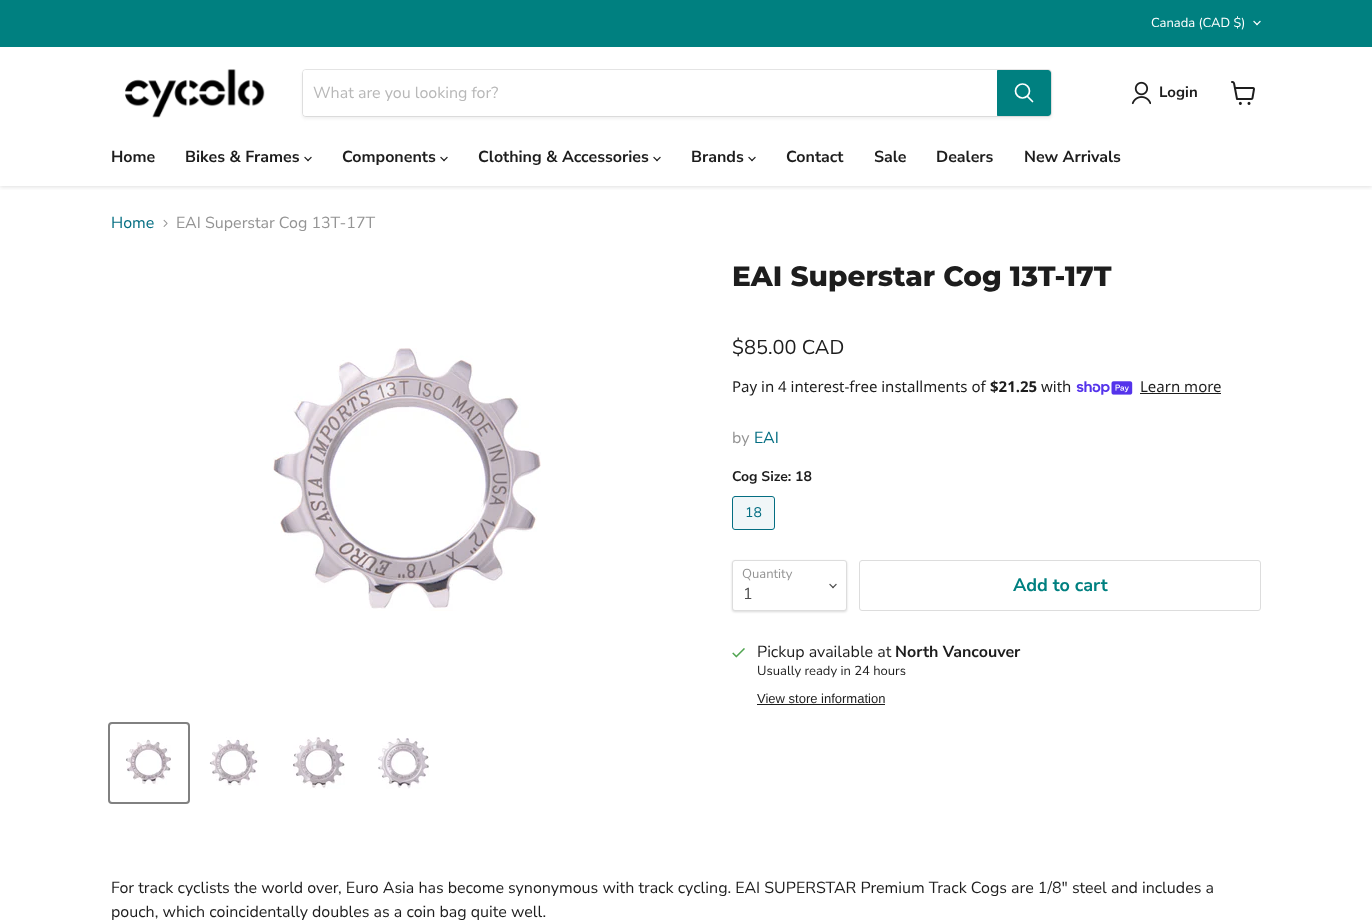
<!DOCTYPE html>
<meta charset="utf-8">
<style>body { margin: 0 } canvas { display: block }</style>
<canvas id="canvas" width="1372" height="921"></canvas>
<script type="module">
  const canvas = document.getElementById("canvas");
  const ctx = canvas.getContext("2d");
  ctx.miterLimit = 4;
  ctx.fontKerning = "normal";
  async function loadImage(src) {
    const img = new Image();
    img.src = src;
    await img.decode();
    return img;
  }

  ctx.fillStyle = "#ffffff";
  ctx.fillRect(0, 0, 1372, 921);
  ctx.save();
  ctx.beginPath();
  ctx.rect(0, 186, 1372, 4);
  ctx.clip();
  ctx.fillStyle = "rgba(128, 128, 128, 0.25)";
  ctx.filter = "blur(2px)";
  ctx.beginPath();
  ctx.rect(0, 49, 1372, 138);
  ctx.fill();
  ctx.filter = "none";
  ctx.restore();
  ctx.fillStyle = "#008080";
  ctx.fillRect(0, 0, 1372, 47);
  ctx.fillStyle = "#ffffff";
  ctx.fillRect(0, 47, 1372, 1);
  ctx.font = "13px Nunito Sans";
  ctx.fillText("Canada (CAD $)", 1151, 27);
  ctx.drawImage(await loadImage("img1.png"), 1253, 20, 8, 6);
  ctx.drawImage(await loadImage("img2.png"), 125, 69, 140, 49);
  ctx.fillStyle = "rgba(128, 128, 128, 0.11)";
  ctx.filter = "blur(1.5px)";
  ctx.beginPath();
  ctx.roundRect(302, 71, 750, 48, 4);
  ctx.fill();
  ctx.filter = "none";
  ctx.beginPath();
  ctx.roundRect(302.5, 69.5, 749, 47, 3.5);
  ctx.strokeStyle = "rgba(128, 128, 128, 0.2)";
  ctx.stroke();
  ctx.fillStyle = "#ffffff";
  ctx.beginPath();
  ctx.roundRect(303, 70, 694, 46, [3, 0, 0, 3]);
  ctx.fill();
  ctx.font = "16px Nunito Sans";
  ctx.fillStyle = "#b8b8b8";
  ctx.fillText("What are you looking for?", 313, 98);
  ctx.fillStyle = "#008080";
  ctx.beginPath();
  ctx.roundRect(997.5, 70.5, 53, 45, [0, 2.5, 2.5, 0]);
  ctx.fill();
  ctx.strokeStyle = "#008080";
  ctx.stroke();
  ctx.beginPath();
  ctx.moveTo(1032.5, 101.5);
  ctx.lineTo(1027.5, 96.5);
  ctx.strokeStyle = "#ffffff";
  ctx.lineWidth = 1.7;
  ctx.lineCap = "round";
  ctx.stroke();
  ctx.beginPath();
  ctx.arc(1022.5, 91, 7, 0, Math.PI * 2);
  ctx.stroke();
  ctx.drawImage(await loadImage("img3.png"), 1131, 81, 20, 24);
  ctx.font = "bold 15px Nunito Sans";
  ctx.fillStyle = "#1d1d1d";
  ctx.fillText("Login", 1159, 97);
  ctx.drawImage(await loadImage("img4.png"), 1231, 81, 24, 24);
  ctx.font = "bold 16px Nunito Sans";
  ctx.fillText("Home", 111, 162);
  ctx.fillText("Bikes & Frames", 185, 162);
  ctx.drawImage(await loadImage("img5.png"), 304, 156, 8, 6);
  ctx.fillText("Components", 342, 162);
  ctx.drawImage(await loadImage("img5.png"), 440, 156, 8, 6);
  ctx.fillText("Clothing & Accessories", 478, 162);
  ctx.drawImage(await loadImage("img5.png"), 653, 156, 8, 6);
  ctx.fillText("Brands", 691, 162);
  ctx.drawImage(await loadImage("img5.png"), 748, 156, 8, 6);
  ctx.fillText("Contact", 786, 162);
  ctx.fillText("Sale", 874, 162);
  ctx.fillText("Dealers", 936, 162);
  ctx.fillText("New Arrivals", 1024, 162);
  ctx.font = "16px Nunito Sans";
  ctx.fillStyle = "#046e82";
  ctx.fillText("Home", 111, 228);
  ctx.drawImage(await loadImage("img6.png"), 163, 219, 5, 8);
  ctx.fillStyle = "#949494";
  ctx.fillText("EAI Superstar Cog 13T-17T", 176, 228);
  ctx.drawImage(await loadImage("img7.png"), 273, 348, 268, 263);
  ctx.beginPath();
  ctx.roundRect(109, 723, 80, 80, 3);
  ctx.strokeStyle = "#818181";
  ctx.lineWidth = 2;
  ctx.stroke();
  ctx.drawImage(await loadImage("img8.png"), 126, 739, 45, 46);
  ctx.drawImage(await loadImage("img9.png"), 209, 737, 50, 49);
  ctx.drawImage(await loadImage("img10.png"), 293, 737, 52, 52);
  ctx.drawImage(await loadImage("img11.png"), 378, 738, 51, 51);
  ctx.font = "800 28px Montserrat";
  ctx.fillStyle = "#1d1d1d";
  ctx.fillText("EAI Superstar Cog 13T-17T", 732, 286);
  ctx.font = "20px Nunito Sans";
  ctx.fillText("$85.00 CAD", 732, 354);
  ctx.font = "15px Noto Sans";
  ctx.fillText("Pay in 4 interest-free installments of", 732, 392);
  ctx.font = "bold 15px Noto Sans";
  ctx.fillText("$21.25", 990, 392);
  ctx.font = "15px Noto Sans";
  ctx.fillText("with", 1041, 392);
  ctx.drawImage(await loadImage("img12.png"), 1076, 381, 57, 14);
  ctx.fillText("Learn more", 1140, 392);
  ctx.fillRect(1140, 393, 81, 1);
  ctx.font = "16px Nunito Sans";
  ctx.fillStyle = "#949494";
  ctx.fillText("by", 732, 443);
  ctx.fillStyle = "#046e82";
  ctx.fillText("EAI", 754, 443);
  ctx.font = "bold 14px Nunito Sans";
  ctx.fillStyle = "#1d1d1d";
  ctx.fillText("Cog Size: 18", 732, 481);
  ctx.fillStyle = "#f0f6f8";
  ctx.beginPath();
  ctx.roundRect(732.5, 496.5, 42, 33, 2.5);
  ctx.fill();
  ctx.strokeStyle = "#046e82";
  ctx.lineWidth = 1;
  ctx.stroke();
  ctx.font = "14px Nunito Sans";
  ctx.fillStyle = "#046e82";
  ctx.fillText("18", 745, 517);
  ctx.fillStyle = "rgba(0, 0, 0, 0.15)";
  ctx.filter = "blur(1px)";
  ctx.beginPath();
  ctx.roundRect(732, 561, 115, 51, 3);
  ctx.fill();
  ctx.filter = "none";
  ctx.fillStyle = "#ffffff";
  ctx.beginPath();
  ctx.roundRect(732.5, 560.5, 114, 50, 2.5);
  ctx.fill();
  ctx.strokeStyle = "#dddddd";
  ctx.stroke();
  ctx.font = "13px Nunito Sans";
  ctx.fillStyle = "#949494";
  ctx.fillText("Quantity", 742, 578);
  ctx.drawImage(await loadImage("img13.png"), 829, 583, 8, 6);
  ctx.font = "16px Nunito Sans";
  ctx.fillStyle = "#4d4d4d";
  ctx.fillText("1", 743, 599);
  ctx.beginPath();
  ctx.roundRect(859.5, 560.5, 401, 50, 2.5);
  ctx.stroke();
  ctx.font = "bold 18px Nunito Sans";
  ctx.fillStyle = "#008080";
  ctx.fillText("Add to cart", 1013, 591);
  ctx.drawImage(await loadImage("img14.png"), 732, 648, 13, 10);
  ctx.font = "16px Nunito Sans";
  ctx.fillStyle = "#1d1d1d";
  ctx.fillText("Pickup available at", 757, 657);
  ctx.font = "bold 16px Nunito Sans";
  ctx.fillText("North Vancouver", 895, 657);
  ctx.font = "13px Nunito Sans";
  ctx.fillText("Usually ready in 24 hours", 757, 675);
  ctx.font = "13px Liberation Sans";
  ctx.fillText("View store information", 757, 703);
  ctx.fillRect(757, 704, 128, 1);
  ctx.font = "16px Nunito Sans";
  ctx.fillText("For track cyclists the world over, Euro Asia has become synonymous with track cycling. EAI SUPERSTAR Premium Track Cogs are 1/8″ steel and includes a", 111, 893);
  ctx.fillText("pouch, which coincidentally doubles as a coin bag quite well.", 111, 917);
</script>
